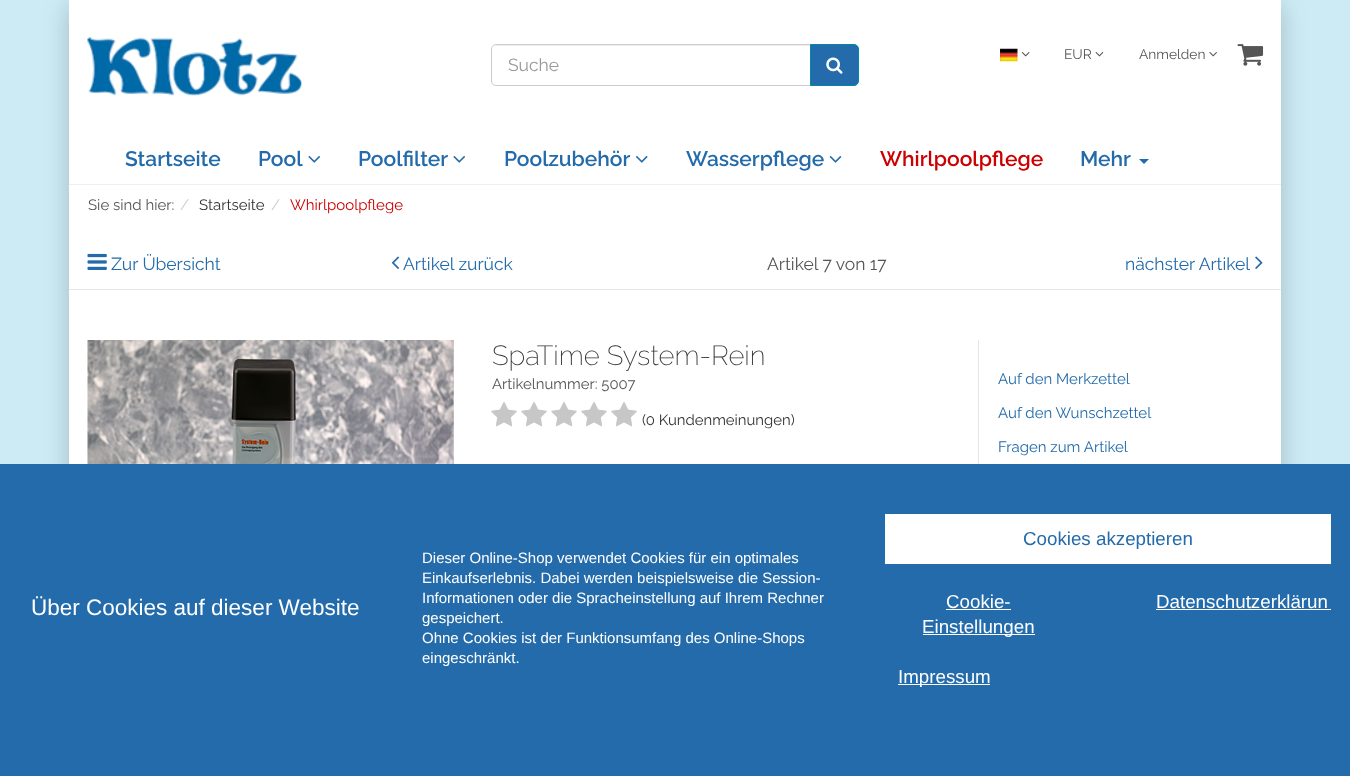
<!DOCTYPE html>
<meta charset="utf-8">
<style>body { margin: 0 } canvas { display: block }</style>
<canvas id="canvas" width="1350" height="776"></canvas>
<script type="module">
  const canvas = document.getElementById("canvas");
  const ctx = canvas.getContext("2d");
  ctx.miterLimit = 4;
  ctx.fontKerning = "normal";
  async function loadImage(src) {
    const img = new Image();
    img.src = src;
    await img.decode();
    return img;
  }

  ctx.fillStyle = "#ccebf5";
  ctx.fillRect(0, 0, 1350, 776);
  ctx.fillStyle = "rgba(0, 0, 0, 0.2)";
  ctx.filter = "blur(12.5px)";
  ctx.beginPath();
  ctx.rect(69, 6, 1212, 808);
  ctx.fill();
  ctx.filter = "none";
  ctx.fillStyle = "#ffffff";
  ctx.fillRect(69, 0, 1212, 184);
  ctx.drawImage(await loadImage("img1.png"), 87, 37, 215, 59);
  ctx.drawImage(await loadImage("img2.png"), 1000, 48, 18, 14);
  ctx.drawImage(await loadImage("img3.png"), 1021, 52, 9, 5);
  ctx.font = "100 13.75px Raleway";
  ctx.fillStyle = "#555555";
  ctx.fillText("EUR", 1064, 59);
  ctx.drawImage(await loadImage("img4.png"), 1095, 52, 9, 5);
  ctx.fillText("Anmelden", 1139, 59);
  ctx.drawImage(await loadImage("img5.png"), 1209, 52, 8, 5);
  ctx.drawImage(await loadImage("img6.png"), 1237, 44, 27, 22);
  ctx.fillStyle = "#ececec";
  ctx.beginPath();
  ctx.moveTo(496, 46);
  ctx.lineTo(810, 46);
  ctx.lineTo(810, 45);
  ctx.lineTo(497, 45);
  ctx.bezierCurveTo(496, 45, 494, 46, 494, 47);
  ctx.closePath();
  ctx.fill();
  ctx.beginPath();
  ctx.roundRect(491.5, 44.5, 319, 41, [4.5, 0, 0, 4.5]);
  ctx.strokeStyle = "#cccccc";
  ctx.stroke();
  ctx.font = "100 17.5px Raleway";
  ctx.fillStyle = "#999999";
  ctx.fillText("Suche", 508, 71);
  ctx.fillStyle = "#236baa";
  ctx.beginPath();
  ctx.roundRect(810.5, 44.5, 48, 41, [0, 4.5, 4.5, 0]);
  ctx.fill();
  ctx.strokeStyle = "#0089a7";
  ctx.stroke();
  ctx.drawImage(await loadImage("img7.png"), 826, 57, 17, 17);
  ctx.fillStyle = "#eeeeee";
  ctx.fillRect(69, 184, 1212, 1);
  ctx.font = "100 21px 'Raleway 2'";
  ctx.fillStyle = "#236baa";
  ctx.fillText("Startseite", 125, 166);
  ctx.fillText("Pool", 258, 166);
  ctx.drawImage(await loadImage("img8.png"), 308, 156, 12, 7);
  ctx.fillText("Poolfilter", 358, 166);
  ctx.drawImage(await loadImage("img8.png"), 453, 156, 12, 7);
  ctx.fillText("Poolzubehör", 504, 166);
  ctx.drawImage(await loadImage("img9.png"), 636, 156, 12, 7);
  ctx.fillText("Wasserpflege", 686, 166);
  ctx.drawImage(await loadImage("img10.png"), 829, 156, 13, 7);
  ctx.fillStyle = "#cc0000";
  ctx.fillText("Whirlpoolpflege", 880, 166);
  ctx.fillStyle = "#236baa";
  ctx.fillText("Mehr", 1080, 166);
  ctx.beginPath();
  ctx.moveTo(1139, 159);
  ctx.lineTo(1149, 159);
  ctx.lineTo(1144, 164);
  ctx.closePath();
  ctx.fill();
  ctx.fillStyle = "#ffffff";
  ctx.fillRect(69, 185, 1212, 279);
  ctx.font = "100 15px Raleway";
  ctx.fillStyle = "#555555";
  ctx.fillText("Sie sind hier:", 88, 210);
  ctx.fillStyle = "#cccccc";
  ctx.fillText("/", 180, 210);
  ctx.fillStyle = "#333333";
  ctx.fillText("Startseite", 199, 210);
  ctx.fillStyle = "#cccccc";
  ctx.fillText("/", 271, 210);
  ctx.fillStyle = "#cc0000";
  ctx.fillText("Whirlpoolpflege", 290, 210);
  ctx.fillStyle = "#e7e7e7";
  ctx.fillRect(69, 289, 1212, 1);
  ctx.drawImage(await loadImage("img11.png"), 87, 253, 20, 17);
  ctx.font = "100 17.5px Raleway";
  ctx.fillStyle = "#236baa";
  ctx.fillText("Zur Übersicht", 111, 270);
  ctx.drawImage(await loadImage("img12.png"), 391, 256, 9, 13);
  ctx.fillText("Artikel zurück", 403, 270);
  ctx.fillStyle = "#555555";
  ctx.fillText("Artikel 7 von 17", 767, 270);
  ctx.fillStyle = "#236baa";
  ctx.fillText("nächster Artikel", 1125, 270);
  ctx.drawImage(await loadImage("img13.png"), 1255, 256, 8, 13);
  ctx.drawImage(await loadImage("img14.png"), 87, 340, 367, 124);
  ctx.font = "100 27.5px 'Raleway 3'";
  ctx.fillStyle = "#333333";
  ctx.fillText("SpaTime System-Rein", 492, 365);
  ctx.font = "100 14.9px Raleway";
  ctx.fillStyle = "#555555";
  ctx.fillText("Artikelnummer: 5007", 492, 389);
  ctx.drawImage(await loadImage("img15.png"), 491, 402, 26, 25);
  ctx.drawImage(await loadImage("img15.png"), 521, 402, 26, 25);
  ctx.drawImage(await loadImage("img15.png"), 551, 402, 26, 25);
  ctx.drawImage(await loadImage("img15.png"), 581, 402, 26, 25);
  ctx.drawImage(await loadImage("img15.png"), 611, 402, 26, 25);
  ctx.fillStyle = "#333333";
  ctx.fillText("(0 Kundenmeinungen)", 642, 425);
  ctx.fillStyle = "#e7e7e7";
  ctx.fillRect(978, 340, 1, 131);
  ctx.font = "100 15px Raleway";
  ctx.fillStyle = "#236baa";
  ctx.fillText("Auf den Merkzettel", 998, 384);
  ctx.fillText("Auf den Wunschzettel", 998, 418);
  ctx.fillText("Fragen zum Artikel", 998, 452);
  ctx.fillRect(0, 464, 1350, 312);
  ctx.font = "22.5px Liberation Sans";
  ctx.fillStyle = "#ffffff";
  ctx.fillText("Über Cookies auf dieser Website", 31, 615);
  ctx.font = "15px Liberation Sans";
  ctx.fillText("Dieser Online-Shop verwendet Cookies für ein optimales", 422, 563);
  ctx.fillText("Einkaufserlebnis. Dabei werden beispielsweise die Session-", 422, 583);
  ctx.fillText("Informationen oder die Spracheinstellung auf Ihrem Rechner", 422, 603);
  ctx.fillText("gespeichert.", 422, 623);
  ctx.fillText("Ohne Cookies ist der Funktionsumfang des Online-Shops", 422, 643);
  ctx.fillText("eingeschränkt.", 422, 663);
  ctx.fillRect(885, 514, 446, 50);
  ctx.font = "18.75px Liberation Sans";
  ctx.fillStyle = "#236baa";
  ctx.fillText("Cookies akzeptieren", 1023, 545);
  ctx.fillStyle = "#ffffff";
  ctx.fillText("Cookie-", 946, 608);
  ctx.fillRect(946, 609, 65, 1);
  ctx.fillRect(923, 634, 112, 1);
  ctx.fillText("Einstellungen", 922, 633);
  ctx.fillText("Datenschutzerklärun", 1156, 608);
  ctx.fillRect(1156, 609, 175, 1);
  ctx.fillRect(898, 684, 92, 1);
  ctx.fillText("Impressum", 898, 683);
</script>
